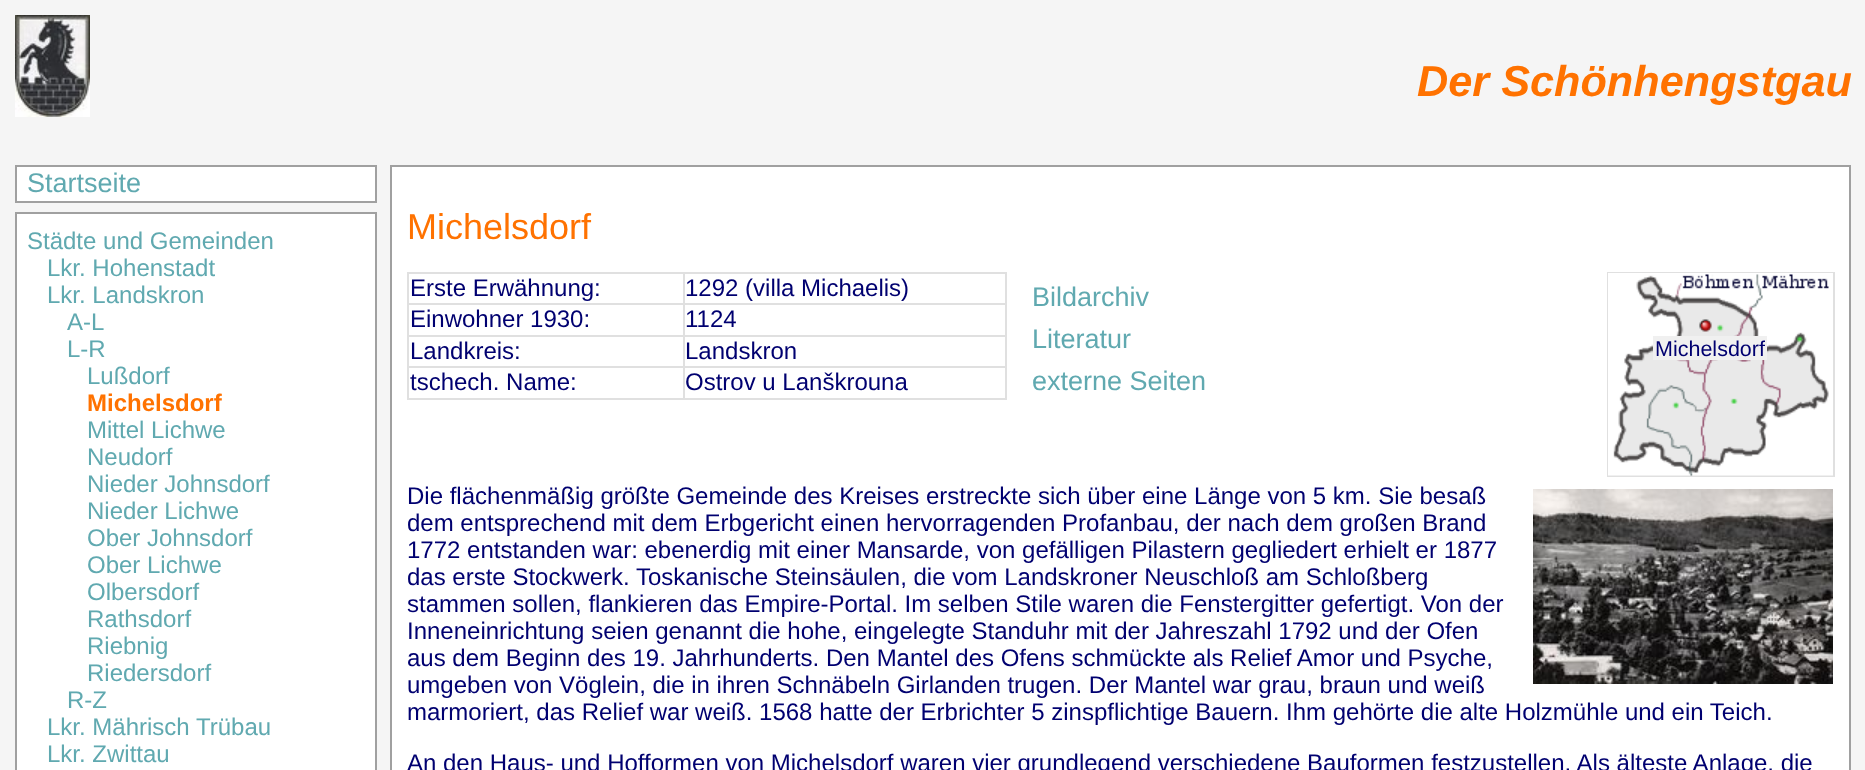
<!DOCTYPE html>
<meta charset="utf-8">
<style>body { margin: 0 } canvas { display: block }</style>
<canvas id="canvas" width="1865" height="770"></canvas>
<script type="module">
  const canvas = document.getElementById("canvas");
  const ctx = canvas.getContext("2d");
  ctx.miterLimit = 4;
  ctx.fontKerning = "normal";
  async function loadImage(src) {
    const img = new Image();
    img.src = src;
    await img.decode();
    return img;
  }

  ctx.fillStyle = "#f5f5f5";
  ctx.fillRect(0, 0, 1865, 770);
  ctx.drawImage(await loadImage("img1.png"), 15, 15, 75, 102);
  ctx.font = "italic bold 43.25px Liberation Sans";
  ctx.fillStyle = "#ff7200";
  ctx.fillText("Der Schönhengstgau", 1417, 96);
  ctx.fillStyle = "#ffffff";
  ctx.beginPath();
  ctx.rect(16, 166, 360, 36);
  ctx.fill();
  ctx.strokeStyle = "#a0a0a0";
  ctx.lineWidth = 2;
  ctx.stroke();
  ctx.font = "27px Liberation Sans";
  ctx.fillStyle = "#60a9b0";
  ctx.fillText("Startseite", 27, 192);
  ctx.fillStyle = "#ffffff";
  ctx.beginPath();
  ctx.rect(16, 213, 360, 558);
  ctx.fill();
  ctx.stroke();
  ctx.font = "24px Liberation Sans";
  ctx.fillStyle = "#60a9b0";
  ctx.fillText("Städte und Gemeinden", 27, 249);
  ctx.fillText("Lkr. Hohenstadt", 47, 276);
  ctx.fillText("Lkr. Landskron", 47, 303);
  ctx.fillText("A-L", 67, 330);
  ctx.fillText("L-R", 67, 357);
  ctx.fillText("Lußdorf", 87, 384);
  ctx.font = "bold 24px Liberation Sans";
  ctx.fillStyle = "#ff7200";
  ctx.fillText("Michelsdorf", 87, 411);
  ctx.font = "24px Liberation Sans";
  ctx.fillStyle = "#60a9b0";
  ctx.fillText("Mittel Lichwe", 87, 438);
  ctx.fillText("Neudorf", 87, 465);
  ctx.fillText("Nieder Johnsdorf", 87, 492);
  ctx.fillText("Nieder Lichwe", 87, 519);
  ctx.fillText("Ober Johnsdorf", 87, 546);
  ctx.fillText("Ober Lichwe", 87, 573);
  ctx.fillText("Olbersdorf", 87, 600);
  ctx.fillText("Rathsdorf", 87, 627);
  ctx.fillText("Riebnig", 87, 654);
  ctx.fillText("Riedersdorf", 87, 681);
  ctx.fillText("R-Z", 67, 708);
  ctx.fillText("Lkr. Mährisch Trübau", 47, 735);
  ctx.fillText("Lkr. Zwittau", 47, 762);
  ctx.fillStyle = "#ffffff";
  ctx.beginPath();
  ctx.rect(391, 166, 1459, 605);
  ctx.fill();
  ctx.stroke();
  ctx.font = "36px Liberation Sans";
  ctx.fillStyle = "#ff7200";
  ctx.fillText("Michelsdorf", 407, 239);
  ctx.fillStyle = "#e0e0e0";
  ctx.fillRect(407, 272, 600, 2);
  ctx.fillRect(1005, 272, 2, 127);
  ctx.fillRect(407, 398, 600, 2);
  ctx.fillRect(407, 272, 2, 127);
  ctx.font = "24px Liberation Sans";
  ctx.fillStyle = "#000070";
  ctx.fillText("Erste Erwähnung:", 410, 296);
  ctx.fillStyle = "#e0e0e0";
  ctx.fillRect(683, 303, 324, 2);
  ctx.fillRect(683, 335, 324, 2);
  ctx.fillRect(683, 366, 324, 2);
  ctx.fillRect(683, 366, 2, 33);
  ctx.fillRect(407, 366, 277, 2);
  ctx.fillRect(683, 335, 2, 33);
  ctx.fillRect(407, 335, 277, 2);
  ctx.fillRect(683, 303, 2, 33);
  ctx.fillRect(407, 303, 277, 2);
  ctx.fillRect(683, 272, 2, 33);
  ctx.fillStyle = "#000070";
  ctx.fillText("1292 (villa Michaelis)", 685, 296);
  ctx.fillText("Einwohner 1930:", 410, 327);
  ctx.fillText("1124", 685, 327);
  ctx.fillText("Landkreis:", 410, 359);
  ctx.fillText("Landskron", 685, 359);
  ctx.fillText("tschech. Name:", 410, 390);
  ctx.fillText("Ostrov u Lanškrouna", 685, 390);
  ctx.font = "27px Liberation Sans";
  ctx.fillStyle = "#60a9b0";
  ctx.fillText("Bildarchiv", 1032, 306);
  ctx.fillText("Literatur", 1032, 348);
  ctx.fillText("externe Seiten", 1032, 390);
  ctx.strokeStyle = "#e0e0e0";
  ctx.strokeRect(1608, 273, 226, 203);
  ctx.drawImage(await loadImage("img2.png"), 1608, 273, 225, 203);
  ctx.drawImage(await loadImage("img3.png"), 1699, 319, 13, 13);
  ctx.fillStyle = "#f0f0f0";
  ctx.fillRect(1653, 336, 114, 24);
  ctx.font = "21.5px Liberation Sans";
  ctx.fillStyle = "#000070";
  ctx.fillText("Michelsdorf", 1655, 356);
  ctx.font = "24px Liberation Sans";
  ctx.fillText("Die flächenmäßig größte Gemeinde des Kreises erstreckte sich über eine Länge von 5 km. Sie besaß", 407, 504);
  ctx.drawImage(await loadImage("img4.png"), 1533, 489, 300, 195);
  ctx.fillText("dem entsprechend mit dem Erbgericht einen hervorragenden Profanbau, der nach dem großen Brand", 407, 531);
  ctx.fillText("1772 entstanden war: ebenerdig mit einer Mansarde, von gefälligen Pilastern gegliedert erhielt er 1877", 407, 558);
  ctx.fillText("das erste Stockwerk. Toskanische Steinsäulen, die vom Landskroner Neuschloß am Schloßberg", 407, 585);
  ctx.fillText("stammen sollen, flankieren das Empire-Portal. Im selben Stile waren die Fenstergitter gefertigt. Von der", 407, 612);
  ctx.fillText("Inneneinrichtung seien genannt die hohe, eingelegte Standuhr mit der Jahreszahl 1792 und der Ofen", 407, 639);
  ctx.fillText("aus dem Beginn des 19. Jahrhunderts. Den Mantel des Ofens schmückte als Relief Amor und Psyche,", 407, 666);
  ctx.fillText("umgeben von Vöglein, die in ihren Schnäbeln Girlanden trugen. Der Mantel war grau, braun und weiß", 407, 693);
  ctx.fillText("marmoriert, das Relief war weiß. 1568 hatte der Erbrichter 5 zinspflichtige Bauern. Ihm gehörte die alte Holzmühle und ein Teich.", 407, 720);
  ctx.fillText("An den Haus- und Hofformen von Michelsdorf waren vier grundlegend verschiedene Bauformen festzustellen. Als älteste Anlage, die", 407, 771);
</script>
